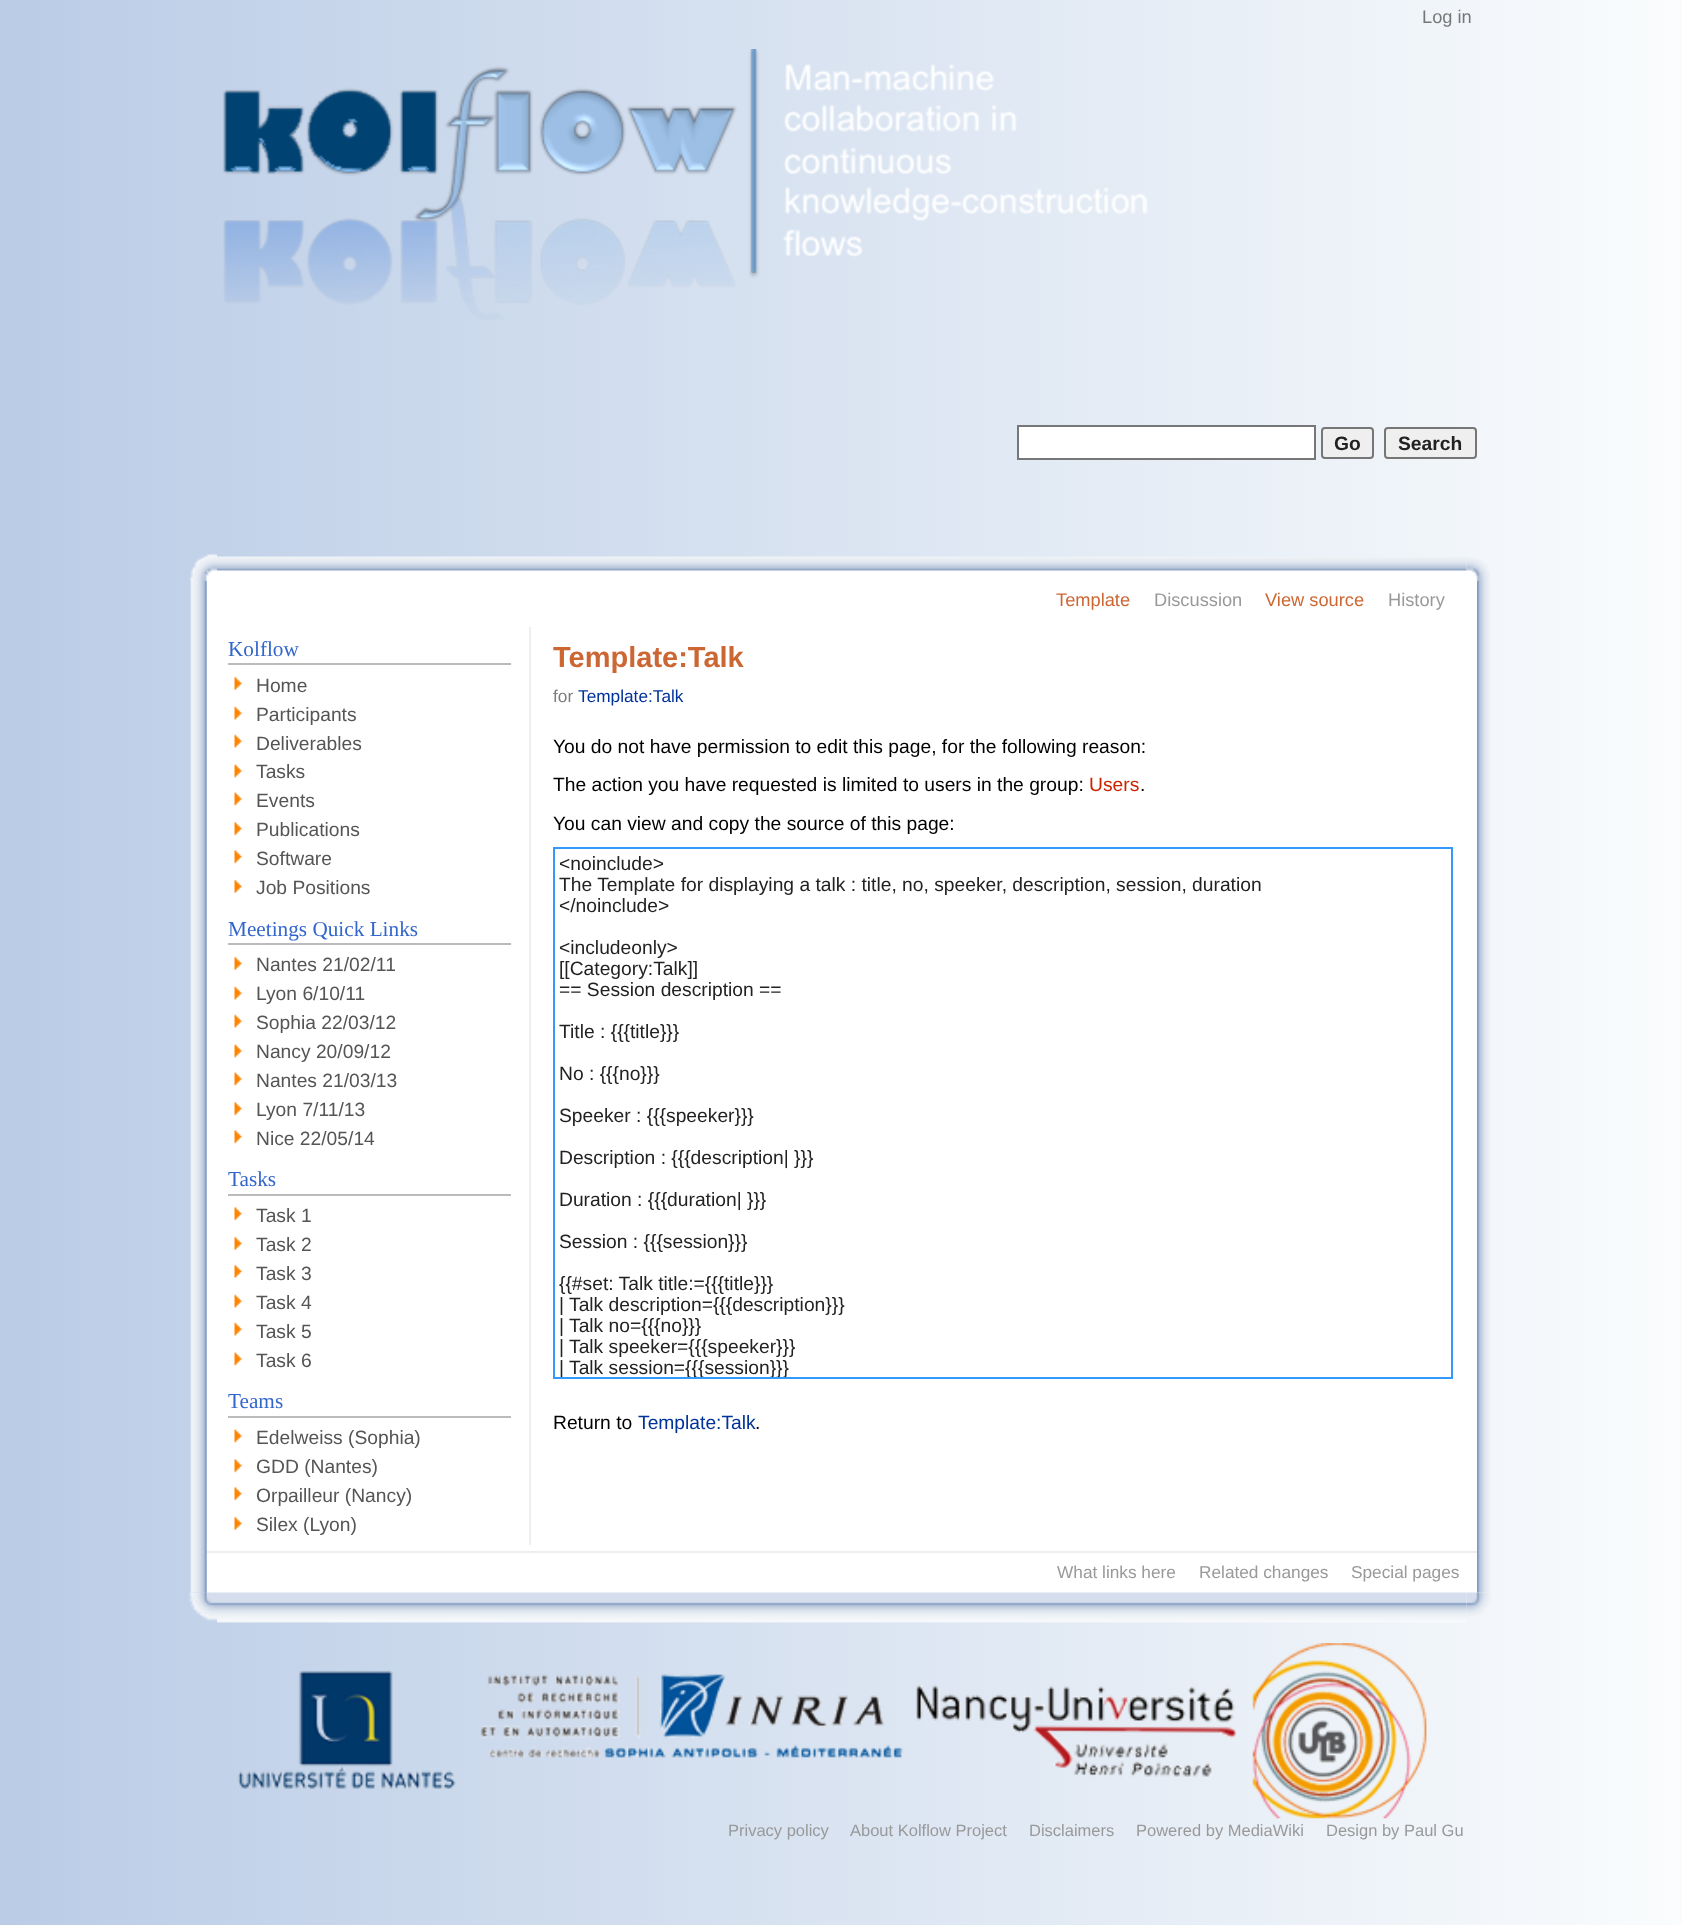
<!DOCTYPE html>
<meta charset="utf-8">
<style>body { margin: 0 } canvas { display: block }</style>
<canvas id="canvas" width="1682" height="1925"></canvas>
<script type="module">
  const canvas = document.getElementById("canvas");
  const ctx = canvas.getContext("2d");
  ctx.miterLimit = 4;
  ctx.fontKerning = "normal";
  async function loadImage(src) {
    const img = new Image();
    img.src = src;
    await img.decode();
    return img;
  }
  let gradient;

  ctx.fillStyle = "#ffffff";
  ctx.fillRect(0, 0, 1682, 1925);
  gradient = ctx.createLinearGradient(0, 0, 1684, 0);
  gradient.addColorStop(0, "#bacce6");
  gradient.addColorStop(1, "#fafcfd");
  ctx.fillStyle = gradient;
  ctx.fillRect(0, 0, 1682, 1925);
  ctx.font = "18.25px Liberation Sans";
  ctx.fillStyle = "#777777";
  ctx.fillText("Log in", 1422, 23);
  ctx.drawImage(await loadImage("img1.png"), 222, 49, 926, 271);
  ctx.fillStyle = "#ffffff";
  ctx.beginPath();
  ctx.rect(1018, 426, 297, 33);
  ctx.fill();
  ctx.strokeStyle = "#777777";
  ctx.lineWidth = 2;
  ctx.stroke();
  ctx.fillStyle = "#efefef";
  ctx.beginPath();
  ctx.roundRect(1322, 428, 51, 30, 3);
  ctx.fill();
  ctx.strokeStyle = "#767676";
  ctx.stroke();
  ctx.font = "bold 19.25px Liberation Sans";
  ctx.fillStyle = "#222222";
  ctx.fillText("Go", 1334, 450);
  ctx.fillStyle = "#efefef";
  ctx.beginPath();
  ctx.roundRect(1385, 428, 91, 30, 3);
  ctx.fill();
  ctx.stroke();
  ctx.fillStyle = "#222222";
  ctx.fillText("Search", 1398, 450);
  ctx.drawImage(await loadImage("img2.png"), 189, 553, 28, 28);
  ctx.drawImage(await loadImage("img3.png"), 1466, 557, 24, 24);
  ctx.drawImage(await loadImage("img4.png"), 217, 556, 1250, 25);
  ctx.drawImage(await loadImage("img5.png"), 190, 581, 17, 1012);
  ctx.drawImage(await loadImage("img6.png"), 1477, 581, 13, 1012);
  ctx.fillStyle = "#ffffff";
  ctx.fillRect(207, 581, 1270, 1012);
  ctx.font = "18.25px Liberation Sans";
  ctx.fillStyle = "#cc6633";
  ctx.fillText("Template", 1056, 606);
  ctx.fillStyle = "#999999";
  ctx.fillText("Discussion", 1154, 606);
  ctx.fillStyle = "#cc6633";
  ctx.fillText("View source", 1265, 606);
  ctx.fillStyle = "#999999";
  ctx.fillText("History", 1388, 606);
  ctx.fillStyle = "#eeeeee";
  ctx.fillRect(529, 627, 2, 918);
  ctx.fillStyle = "#bbbbbb";
  ctx.fillRect(228, 663, 283, 2);
  ctx.font = "21.25px Liberation Serif";
  ctx.fillStyle = "#3366cc";
  ctx.fillText("Kolflow", 228, 656);
  ctx.drawImage(await loadImage("img7.png"), 234, 676, 8, 14);
  ctx.font = "19.25px Liberation Sans";
  ctx.fillStyle = "#555555";
  ctx.fillText("Home", 256, 692);
  ctx.drawImage(await loadImage("img8.png"), 234, 706, 8, 14);
  ctx.fillText("Participants", 256, 721);
  ctx.drawImage(await loadImage("img8.png"), 234, 734, 8, 14);
  ctx.fillText("Deliverables", 256, 750);
  ctx.drawImage(await loadImage("img9.png"), 234, 764, 8, 14);
  ctx.fillText("Tasks", 256, 778);
  ctx.drawImage(await loadImage("img9.png"), 234, 792, 8, 14);
  ctx.fillText("Events", 256, 807);
  ctx.drawImage(await loadImage("img10.png"), 234, 822, 8, 14);
  ctx.fillText("Publications", 256, 836);
  ctx.drawImage(await loadImage("img10.png"), 234, 850, 8, 14);
  ctx.fillText("Software", 256, 865);
  ctx.drawImage(await loadImage("img7.png"), 234, 879, 8, 14);
  ctx.fillText("Job Positions", 256, 894);
  ctx.fillStyle = "#bbbbbb";
  ctx.fillRect(228, 943, 283, 2);
  ctx.font = "21.25px Liberation Serif";
  ctx.fillStyle = "#3366cc";
  ctx.fillText("Meetings Quick Links", 228, 936);
  ctx.drawImage(await loadImage("img7.png"), 234, 956, 8, 14);
  ctx.font = "19.25px Liberation Sans";
  ctx.fillStyle = "#555555";
  ctx.fillText("Nantes 21/02/11", 256, 971);
  ctx.drawImage(await loadImage("img8.png"), 234, 986, 8, 14);
  ctx.fillText("Lyon 6/10/11", 256, 1000);
  ctx.drawImage(await loadImage("img8.png"), 234, 1014, 8, 14);
  ctx.fillText("Sophia 22/03/12", 256, 1029);
  ctx.drawImage(await loadImage("img9.png"), 234, 1044, 8, 14);
  ctx.fillText("Nancy 20/09/12", 256, 1058);
  ctx.drawImage(await loadImage("img9.png"), 234, 1072, 8, 14);
  ctx.fillText("Nantes 21/03/13", 256, 1087);
  ctx.drawImage(await loadImage("img10.png"), 234, 1102, 8, 14);
  ctx.fillText("Lyon 7/11/13", 256, 1116);
  ctx.drawImage(await loadImage("img10.png"), 234, 1130, 8, 14);
  ctx.fillText("Nice 22/05/14", 256, 1145);
  ctx.fillStyle = "#bbbbbb";
  ctx.fillRect(228, 1194, 283, 2);
  ctx.font = "21.25px Liberation Serif";
  ctx.fillStyle = "#3366cc";
  ctx.fillText("Tasks", 228, 1186);
  ctx.drawImage(await loadImage("img10.png"), 234, 1207, 8, 14);
  ctx.font = "19.25px Liberation Sans";
  ctx.fillStyle = "#555555";
  ctx.fillText("Task 1", 256, 1222);
  ctx.drawImage(await loadImage("img7.png"), 234, 1236, 8, 14);
  ctx.fillText("Task 2", 256, 1251);
  ctx.drawImage(await loadImage("img7.png"), 234, 1264, 8, 14);
  ctx.fillText("Task 3", 256, 1280);
  ctx.drawImage(await loadImage("img8.png"), 234, 1294, 8, 14);
  ctx.fillText("Task 4", 256, 1309);
  ctx.drawImage(await loadImage("img8.png"), 234, 1322, 8, 14);
  ctx.fillText("Task 5", 256, 1338);
  ctx.drawImage(await loadImage("img9.png"), 234, 1352, 8, 14);
  ctx.fillText("Task 6", 256, 1367);
  ctx.fillStyle = "#bbbbbb";
  ctx.fillRect(228, 1416, 283, 2);
  ctx.font = "21.25px Liberation Serif";
  ctx.fillStyle = "#3366cc";
  ctx.fillText("Teams", 228, 1408);
  ctx.drawImage(await loadImage("img9.png"), 234, 1429, 8, 14);
  ctx.font = "19.25px Liberation Sans";
  ctx.fillStyle = "#555555";
  ctx.fillText("Edelweiss (Sophia)", 256, 1444);
  ctx.drawImage(await loadImage("img10.png"), 234, 1459, 8, 14);
  ctx.fillText("GDD (Nantes)", 256, 1473);
  ctx.drawImage(await loadImage("img10.png"), 234, 1487, 8, 14);
  ctx.fillText("Orpailleur (Nancy)", 256, 1502);
  ctx.drawImage(await loadImage("img7.png"), 234, 1516, 8, 14);
  ctx.fillText("Silex (Lyon)", 256, 1531);
  ctx.font = "bold 29px Liberation Sans";
  ctx.fillStyle = "#cc6633";
  ctx.fillText("Template:Talk", 553, 667);
  ctx.font = "17.25px Liberation Sans";
  ctx.fillStyle = "#7d7d7d";
  ctx.fillText("for", 553, 702);
  ctx.fillStyle = "#003399";
  ctx.fillText("Template:Talk", 578, 702);
  ctx.font = "19.25px Liberation Sans";
  ctx.fillStyle = "#000000";
  ctx.fillText("You do not have permission to edit this page, for the following reason:", 553, 753);
  ctx.fillText("The action you have requested is limited to users in the group:", 553, 791);
  ctx.fillStyle = "#cc2200";
  ctx.fillText("Users", 1089, 791);
  ctx.fillStyle = "#000000";
  ctx.fillText(".", 1140, 791);
  ctx.fillText("You can view and copy the source of this page:", 553, 830);
  ctx.strokeStyle = "#3399ff";
  ctx.strokeRect(554, 848, 898, 530);
  ctx.fillStyle = "#222222";
  ctx.fillText("<noinclude>", 559, 870);
  ctx.fillText("The Template for displaying a talk : title, no, speeker, description, session, duration", 559, 891);
  ctx.fillText("<\/noinclude>", 559, 912);
  ctx.fillText("<includeonly>", 559, 954);
  ctx.fillText("[[Category:Talk]]", 559, 975);
  ctx.fillText("== Session description ==", 559, 996);
  ctx.fillText("Title : {{{title}}}", 559, 1038);
  ctx.fillText("No : {{{no}}}", 559, 1080);
  ctx.fillText("Speeker : {{{speeker}}}", 559, 1122);
  ctx.fillText("Description : {{{description| }}}", 559, 1164);
  ctx.fillText("Duration : {{{duration| }}}", 559, 1206);
  ctx.fillText("Session : {{{session}}}", 559, 1248);
  ctx.fillText("{{#set: Talk title:={{{title}}}", 559, 1290);
  ctx.fillText("| Talk description={{{description}}}", 559, 1311);
  ctx.fillText("| Talk no={{{no}}}", 559, 1332);
  ctx.fillText("| Talk speeker={{{speeker}}}", 559, 1353);
  ctx.save();
  ctx.beginPath();
  ctx.rect(555, 849, 896, 528);
  ctx.clip();
  ctx.fillText("| Talk session={{{session}}}", 559, 1374);
  ctx.restore();
  ctx.fillStyle = "#000000";
  ctx.fillText("Return to", 553, 1429);
  ctx.fillStyle = "#003399";
  ctx.fillText("Template:Talk", 638, 1429);
  ctx.fillStyle = "#000000";
  ctx.fillText(".", 755, 1429);
  ctx.fillStyle = "#eeeeee";
  ctx.fillRect(207, 1551, 1270, 2);
  ctx.font = "17.25px Liberation Sans";
  ctx.fillStyle = "#999999";
  ctx.fillText("What links here", 1057, 1578);
  ctx.fillText("Related changes", 1199, 1578);
  ctx.fillText("Special pages", 1351, 1578);
  ctx.drawImage(await loadImage("img11.png"), 189, 1592, 28, 29);
  ctx.drawImage(await loadImage("img12.png"), 1466, 1592, 25, 25);
  ctx.drawImage(await loadImage("img13.png"), 217, 1592, 1250, 31);
  ctx.drawImage(await loadImage("img14.png"), 237, 1643, 1190, 176);
  ctx.font = "16.5px Liberation Sans";
  ctx.fillText("Privacy policy", 728, 1836);
  ctx.fillText("About Kolflow Project", 850, 1836);
  ctx.fillText("Disclaimers", 1029, 1836);
  ctx.fillText("Powered by MediaWiki", 1136, 1836);
  ctx.fillText("Design by Paul Gu", 1326, 1836);
</script>
